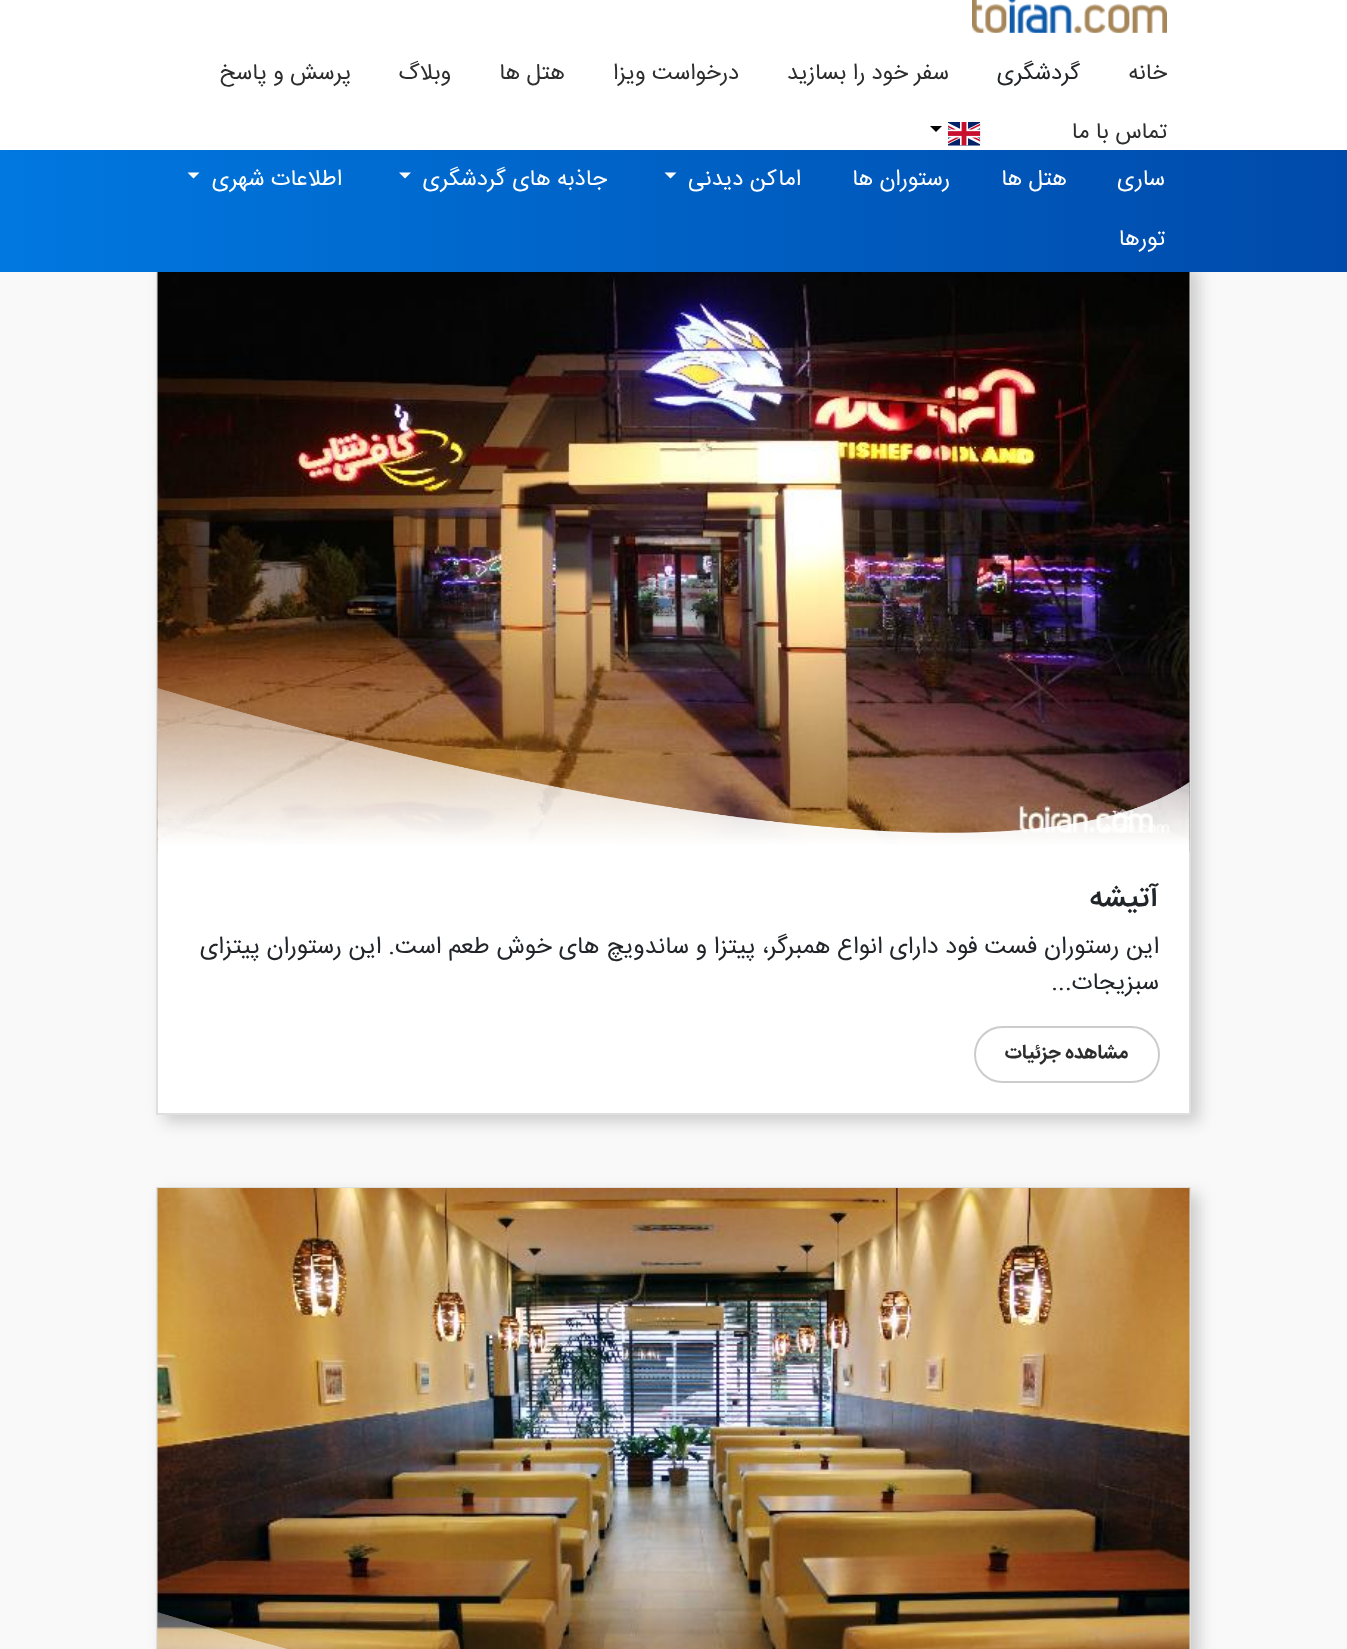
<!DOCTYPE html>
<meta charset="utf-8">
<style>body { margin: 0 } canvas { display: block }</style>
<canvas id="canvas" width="1347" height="1649"></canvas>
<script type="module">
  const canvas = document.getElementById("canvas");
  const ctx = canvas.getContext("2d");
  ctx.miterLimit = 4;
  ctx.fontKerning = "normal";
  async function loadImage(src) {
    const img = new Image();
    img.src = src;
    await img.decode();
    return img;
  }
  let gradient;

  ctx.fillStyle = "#f9f9f9";
  ctx.fillRect(0, 0, 1347, 1649);
  ctx.fillStyle = "#ffffff";
  ctx.fillRect(0, 0, 1347, 150);
  ctx.drawImage(await loadImage("img1.png"), 972, 0, 195, 33);
  ctx.direction = "rtl";
  ctx.font = "22.5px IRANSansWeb";
  ctx.fillStyle = "#2d2d2d";
  ctx.fillText("خانه", 1167, 79);
  ctx.fillStyle = "#212529";
  ctx.fillText("گردشگری", 1080, 79);
  ctx.fillStyle = "#2d2d2d";
  ctx.fillText("سفر خود را بسازید", 949, 79);
  ctx.fillText("درخواست ویزا", 739, 79);
  ctx.fillText("هتل ها", 565, 79);
  ctx.fillText("وبلاگ", 451, 79);
  ctx.fillText("پرسش و پاسخ", 351, 79);
  ctx.fillText("تماس با ما", 1167, 138);
  ctx.drawImage(await loadImage("img2.png"), 948, 122, 33, 24);
  ctx.fillStyle = "#000000";
  ctx.beginPath();
  ctx.moveTo(930, 126);
  ctx.lineTo(942, 126);
  ctx.lineTo(936, 132);
  ctx.closePath();
  ctx.fill();
  ctx.fillStyle = "#cccccc";
  ctx.filter = "blur(7.5px)";
  ctx.beginPath();
  ctx.rect(164, 269, 1035, 853);
  ctx.fill();
  ctx.filter = "none";
  ctx.fillStyle = "#ffffff";
  ctx.fillRect(158, 852, 1031, 261);
  ctx.strokeStyle = "#dfdfdf";
  ctx.lineWidth = 2;
  ctx.strokeRect(157, 262, 1033, 852);
  gradient = ctx.createLinearGradient(0, 211, 1347, 211);
  gradient.addColorStop(0, "#0078e0");
  gradient.addColorStop(1, "#004aaa");
  ctx.fillStyle = gradient;
  ctx.fillRect(0, 150, 1347, 122);
  ctx.fillStyle = "#ffffff";
  ctx.fillText("ساری", 1165, 185);
  ctx.fillText("هتل ها", 1067, 185);
  ctx.fillText("رستوران ها", 950, 185);
  ctx.fillText("اماکن دیدنی", 801, 185);
  ctx.beginPath();
  ctx.moveTo(664.5, 172.5);
  ctx.lineTo(676.5, 172.5);
  ctx.lineTo(670.5, 178.5);
  ctx.closePath();
  ctx.fill();
  ctx.fillText("جاذبه های گردشگری", 607, 185);
  ctx.beginPath();
  ctx.moveTo(399, 172.5);
  ctx.lineTo(411, 172.5);
  ctx.lineTo(405, 178.5);
  ctx.closePath();
  ctx.fill();
  ctx.fillText("اطلاعات شهری", 342, 185);
  ctx.beginPath();
  ctx.moveTo(187.5, 172.5);
  ctx.lineTo(199.5, 172.5);
  ctx.lineTo(193.5, 178.5);
  ctx.closePath();
  ctx.fill();
  ctx.fillText("تورها", 1165, 245);
  ctx.drawImage(await loadImage("img3.png"), 157, 272, 1033, 580);
  ctx.drawImage(await loadImage("img4.png"), 157, 688, 1033, 164);
  ctx.font = "500 30px IRANSansWeb";
  ctx.fillStyle = "#212529";
  ctx.fillText("آتیشه", 1159, 906);
  ctx.font = "24px IRANSansWeb";
  ctx.fillText("این رستوران فست فود دارای انواع همبرگر، پیتزا و ساندویچ های خوش طعم است. این رستوران پیتزای", 1159, 953);
  ctx.fillText("سبزیجات...", 1159, 989);
  ctx.beginPath();
  ctx.roundRect(975, 1027, 184, 55, 27.5);
  ctx.strokeStyle = "#cccccc";
  ctx.stroke();
  ctx.font = "bold 19.5px IRANSansWeb";
  ctx.fillStyle = "#2d2d2d";
  ctx.fillText("مشاهده جزئیات", 1128, 1058);
  ctx.fillStyle = "#cccccc";
  ctx.filter = "blur(7.5px)";
  ctx.beginPath();
  ctx.rect(164, 1194, 1035, 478);
  ctx.fill();
  ctx.filter = "none";
  ctx.strokeStyle = "#dfdfdf";
  ctx.strokeRect(157, 1188, 1033, 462);
  ctx.drawImage(await loadImage("img5.png"), 157, 1188, 1033, 461);
  ctx.drawImage(await loadImage("img6.png"), 157, 1612, 130, 37);
</script>
